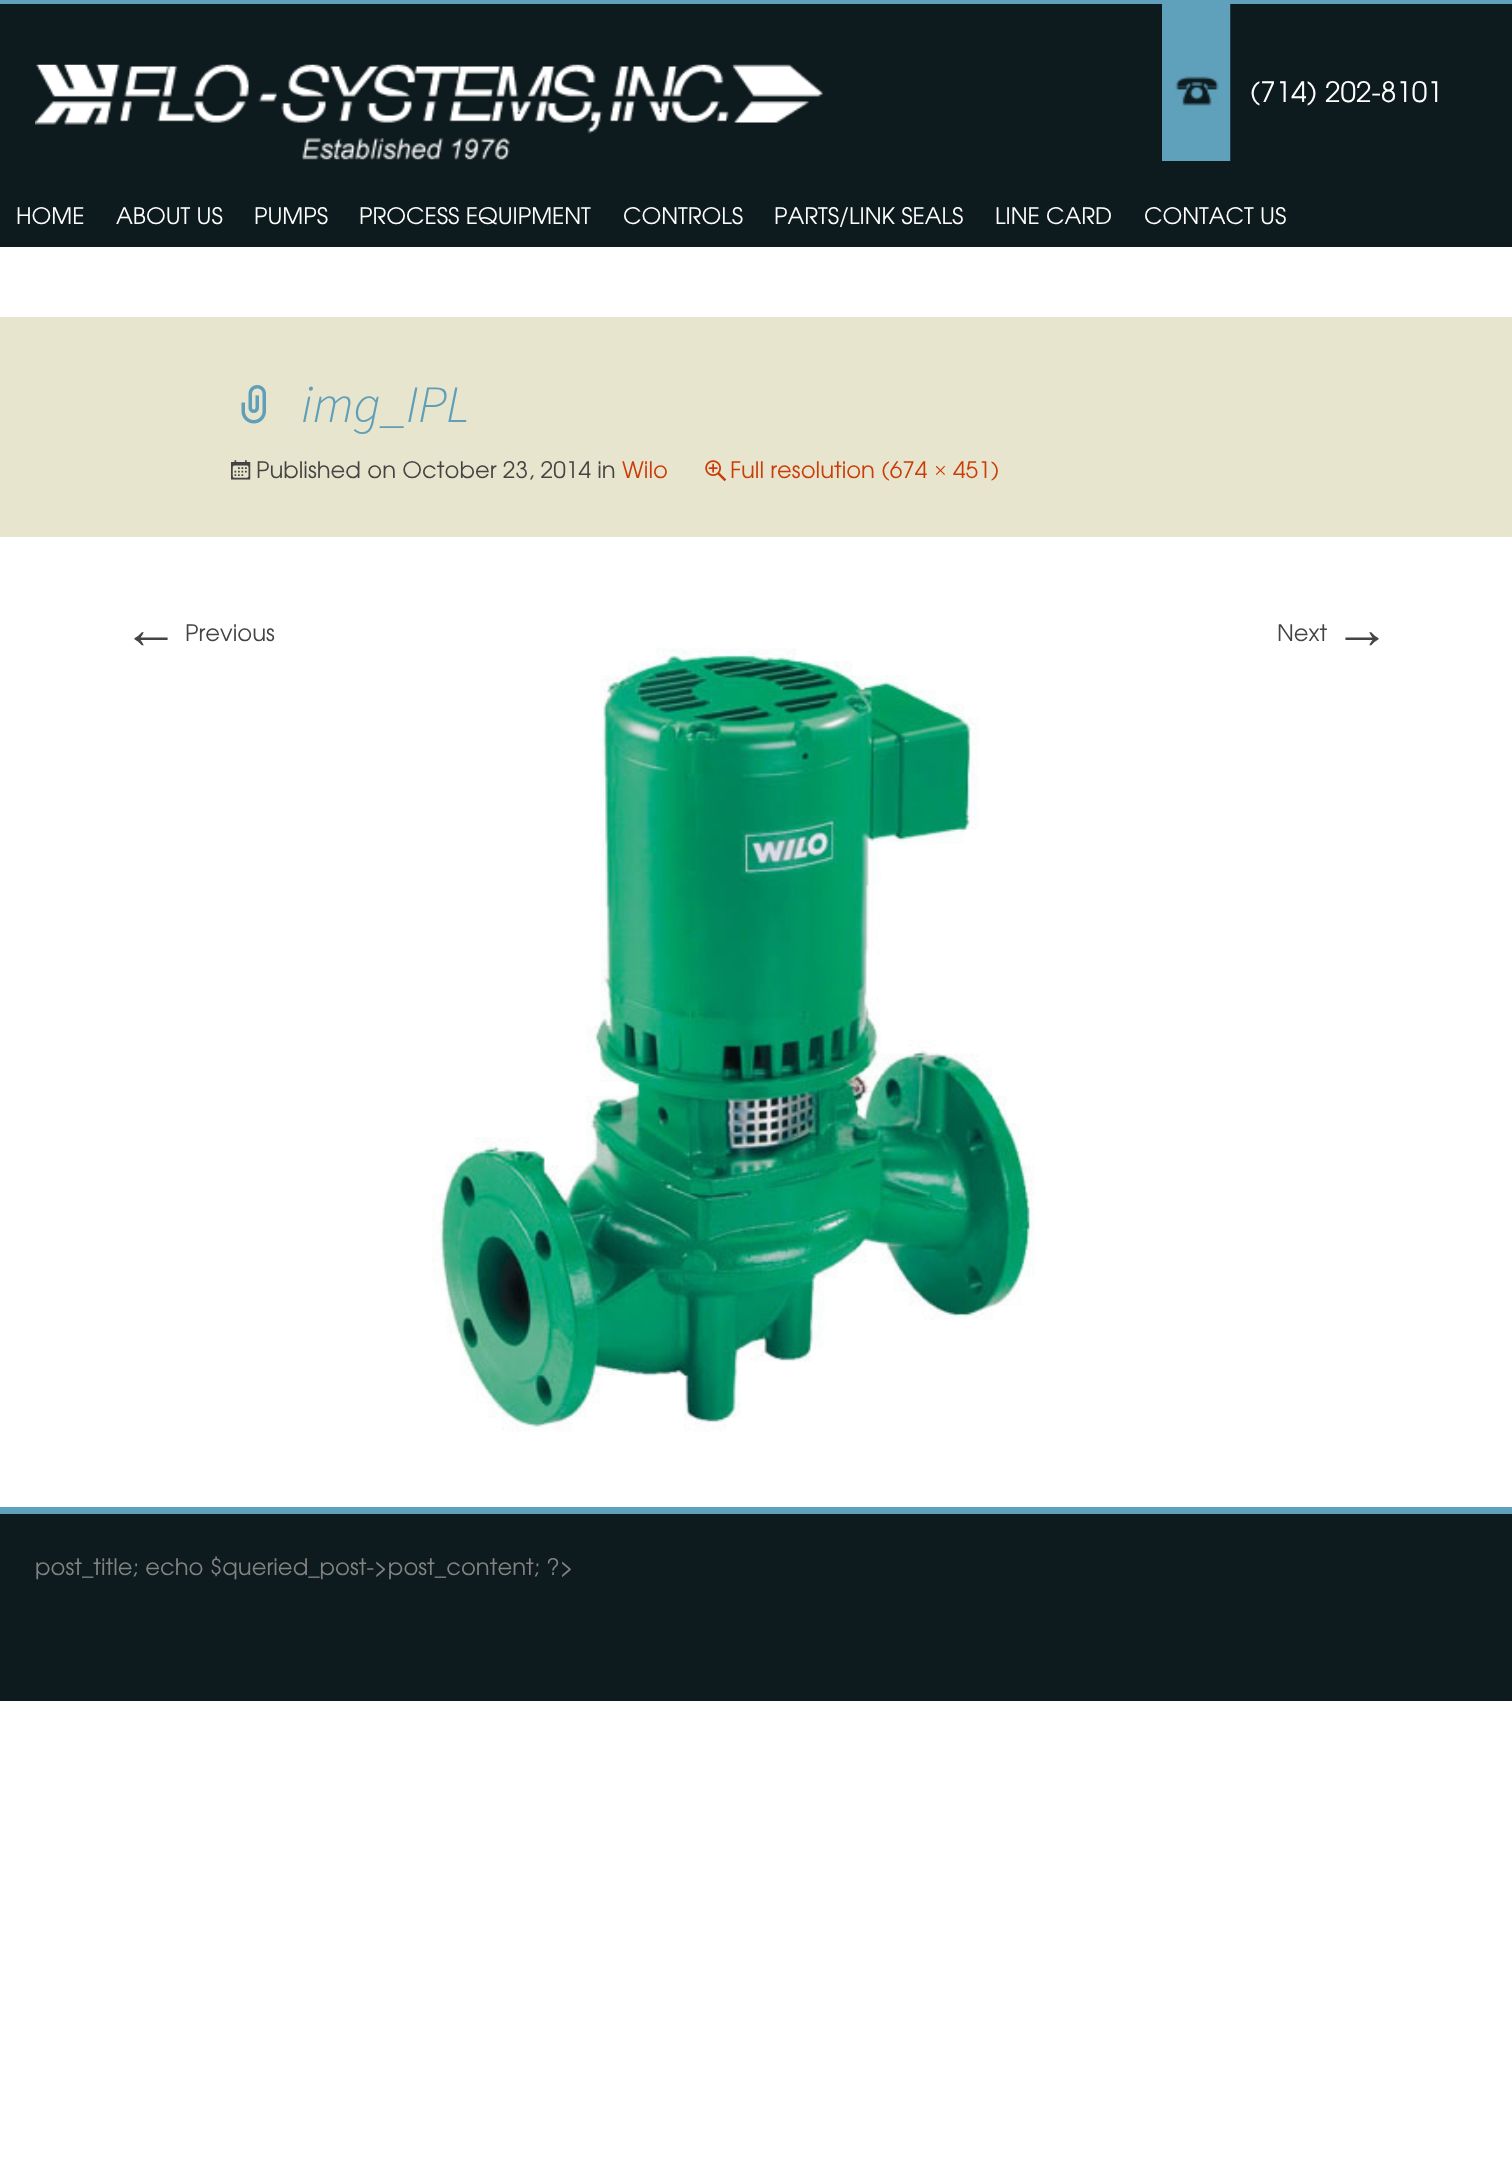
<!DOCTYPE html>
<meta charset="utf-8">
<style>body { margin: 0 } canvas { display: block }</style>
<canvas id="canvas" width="1512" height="2164"></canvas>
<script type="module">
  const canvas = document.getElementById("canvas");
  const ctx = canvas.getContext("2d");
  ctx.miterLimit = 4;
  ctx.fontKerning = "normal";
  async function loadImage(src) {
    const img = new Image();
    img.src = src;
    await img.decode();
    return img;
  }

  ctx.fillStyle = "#ffffff";
  ctx.fillRect(0, 0, 1512, 2164);
  ctx.fillStyle = "#0d1a1e";
  ctx.fillRect(0, 4, 1512, 243);
  ctx.fillStyle = "#5fa0ba";
  ctx.fillRect(0, 0, 1512, 4);
  ctx.drawImage(await loadImage("img1.png"), 35, 64, 788, 96);
  ctx.drawImage(await loadImage("img2.png"), 1162, 4, 69, 157);
  ctx.font = "28px TeX Gyre Adventor";
  ctx.fillStyle = "#ffffff";
  ctx.fillText("(714) 202-8101", 1250, 102);
  ctx.font = "22.75px TeX Gyre Adventor";
  ctx.fillText("HOME", 16, 224);
  ctx.fillText("ABOUT US", 116, 224);
  ctx.fillText("PUMPS", 254, 224);
  ctx.fillText("PROCESS EQUIPMENT", 359, 224);
  ctx.fillText("CONTROLS", 623, 224);
  ctx.fillText("PARTS/LINK SEALS", 774, 224);
  ctx.fillText("LINE CARD", 995, 224);
  ctx.fillText("CONTACT US", 1144, 224);
  ctx.fillStyle = "#e8e5ce";
  ctx.fillRect(0, 317, 1512, 220);
  ctx.drawImage(await loadImage("img3.png"), 241, 385, 25, 39);
  ctx.font = "italic 300 52.5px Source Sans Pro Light";
  ctx.fillStyle = "#5f9fb8";
  ctx.fillText("img_IPL", 301, 422);
  ctx.drawImage(await loadImage("img4.png"), 231, 460, 20, 20);
  ctx.font = "22.75px TeX Gyre Adventor";
  ctx.fillStyle = "#444444";
  ctx.fillText("Published on October 23, 2014 in", 256, 478);
  ctx.fillStyle = "#ca3c08";
  ctx.fillText("Wilo", 622, 478);
  ctx.drawImage(await loadImage("img5.png"), 705, 460, 22, 22);
  ctx.fillText("Full resolution (674", 730, 478);
  ctx.font = "22.75px Liberation Serif";
  ctx.fillText("×", 934, 478);
  ctx.font = "22.75px TeX Gyre Adventor";
  ctx.fillText("451)", 953, 478);
  ctx.font = "56px Liberation Serif";
  ctx.fillStyle = "#444444";
  ctx.fillText("←", 123, 648);
  ctx.font = "22.75px TeX Gyre Adventor";
  ctx.fillText("Previous", 185, 641);
  ctx.fillText("Next", 1277, 641);
  ctx.font = "56px Liberation Serif";
  ctx.fillText("→", 1334, 648);
  ctx.drawImage(await loadImage("img6.png"), 432, 647, 603, 785);
  ctx.fillStyle = "#0d1a1e";
  ctx.fillRect(0, 1514, 1512, 187);
  ctx.fillStyle = "#5fa0ba";
  ctx.fillRect(0, 1507, 1512, 7);
  ctx.font = "22.75px TeX Gyre Adventor";
  ctx.fillStyle = "#838383";
  ctx.fillText("post_title; echo $queried_post->post_content; ?>", 35, 1575);
</script>
